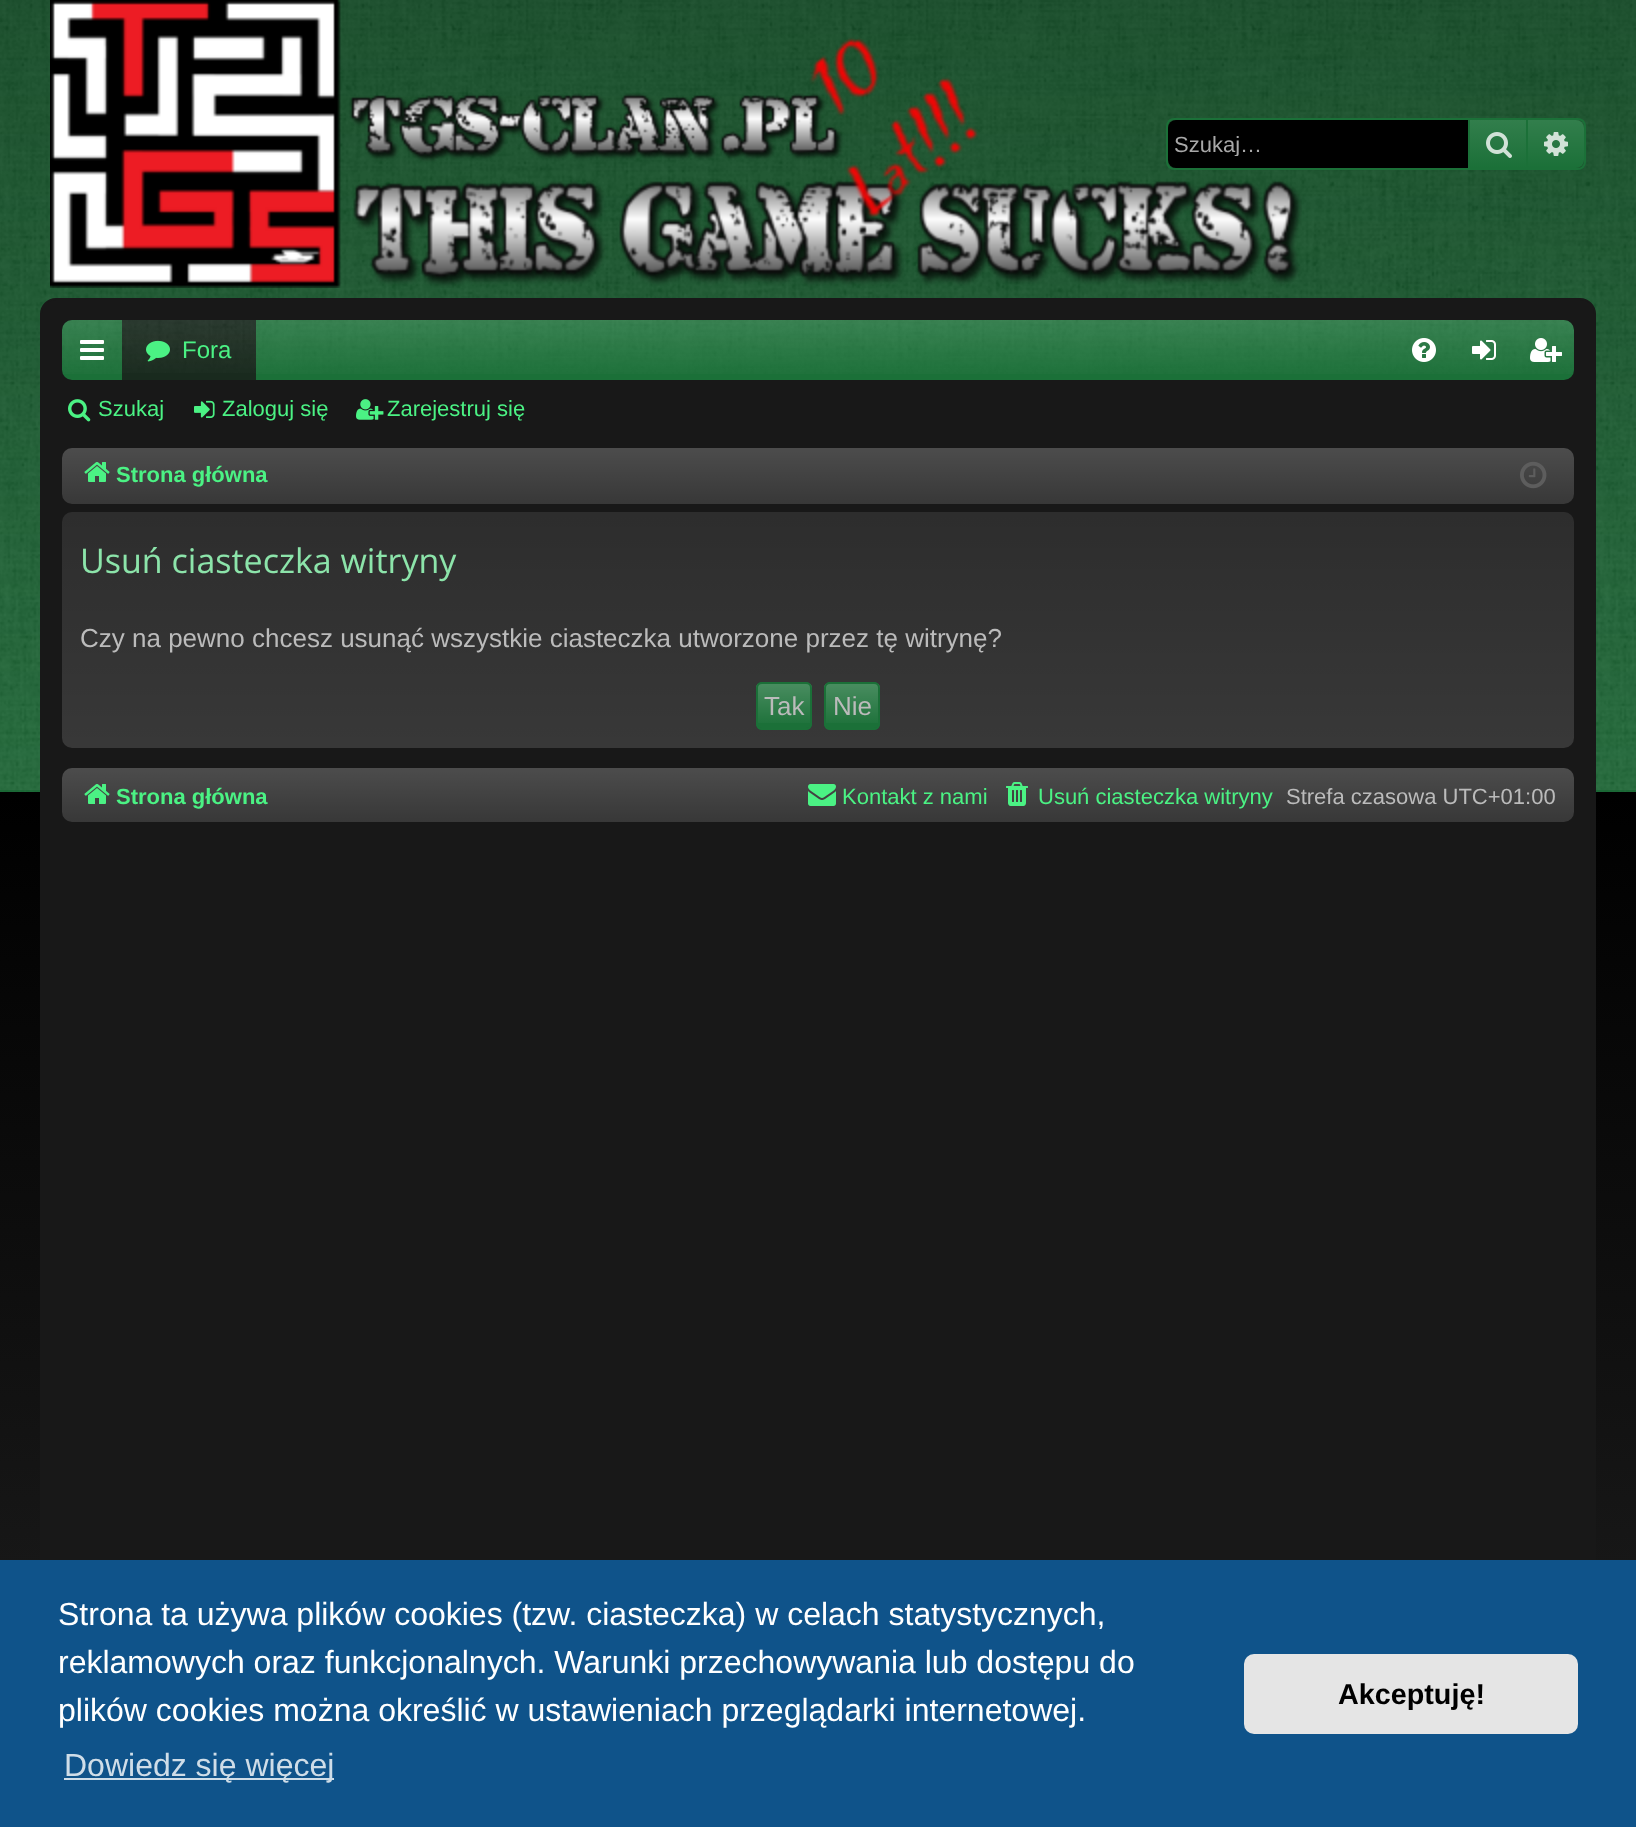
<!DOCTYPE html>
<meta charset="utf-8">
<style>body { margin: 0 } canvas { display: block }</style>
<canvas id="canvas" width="1636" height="1827"></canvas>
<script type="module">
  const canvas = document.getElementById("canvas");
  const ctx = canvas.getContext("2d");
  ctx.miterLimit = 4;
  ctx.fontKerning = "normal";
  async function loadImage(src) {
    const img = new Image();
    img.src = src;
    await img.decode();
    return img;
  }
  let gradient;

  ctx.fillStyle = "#ffffff";
  ctx.fillRect(0, 0, 1636, 1827);
  gradient = ctx.createLinearGradient(818, -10, 818, 1818);
  gradient.addColorStop(0, "#000000");
  gradient.addColorStop(0.44, "#000000");
  gradient.addColorStop(0.88, "#181818");
  ctx.fillStyle = gradient;
  ctx.fillRect(0, 792, 1636, 768);
  ctx.fillStyle = "#1b6634";
  ctx.fillRect(0, 0, 1636, 792);
  ctx.drawImage(await loadImage("img1.png"), 0, 0, 1636, 792);
  ctx.fillStyle = "rgba(14, 201, 78, 0.2)";
  ctx.fillRect(0, 790, 1636, 2);
  ctx.drawImage(await loadImage("img2.png"), 50, 0, 1252, 288);
  ctx.beginPath();
  ctx.roundRect(1167, 119, 418, 50, 7);
  ctx.strokeStyle = "#1b7038";
  ctx.lineWidth = 2;
  ctx.stroke();
  ctx.fillStyle = "#000000";
  ctx.beginPath();
  ctx.roundRect(1168, 120, 300, 48, [8, 0, 0, 8]);
  ctx.fill();
  ctx.save();
  ctx.beginPath();
  ctx.rect(1174, 132, 280, 24);
  ctx.clip();
  ctx.font = "22px Liberation Sans";
  ctx.fillStyle = "#a8a8a8";
  ctx.fillText("Szukaj…", 1174, 152);
  ctx.restore();
  gradient = ctx.createLinearGradient(1498, 120, 1498, 168);
  gradient.addColorStop(0, "#327e4c");
  gradient.addColorStop(1, "#1b7038");
  ctx.fillStyle = gradient;
  ctx.fillRect(1470, 120, 56, 48);
  ctx.fillStyle = "#1b7038";
  ctx.fillRect(1526, 120, 2, 48);
  ctx.fillRect(1468, 120, 2, 48);
  ctx.drawImage(await loadImage("img3.png"), 1486, 132, 26, 26);
  ctx.beginPath();
  ctx.roundRect(1528, 120, 56, 48, [0, 8, 8, 0]);
  ctx.fill();
  gradient = ctx.createLinearGradient(1556, 120, 1556, 168);
  gradient.addColorStop(0, "rgba(255, 255, 255, 0.1)");
  gradient.addColorStop(1, "rgba(255, 255, 255, 0)");
  ctx.fillStyle = gradient;
  ctx.beginPath();
  ctx.roundRect(1528, 120, 56, 48, [0, 8, 8, 0]);
  ctx.fill();
  ctx.drawImage(await loadImage("img4.png"), 1544, 132, 24, 24);
  ctx.fillStyle = "#181818";
  ctx.beginPath();
  ctx.roundRect(41, 299, 1554, 1398, 15);
  ctx.fill();
  ctx.strokeStyle = "#181818";
  ctx.stroke();
  ctx.fillStyle = "#1b7038";
  ctx.beginPath();
  ctx.roundRect(62, 320, 1512, 60, 10);
  ctx.fill();
  ctx.drawImage(await loadImage("img5.png"), 62, 320, 1512, 54);
  ctx.drawImage(await loadImage("img6.png"), 80, 340, 24, 20);
  ctx.fillStyle = "#192a1e";
  ctx.fillRect(122, 320, 134, 60);
  ctx.drawImage(await loadImage("img7.png"), 122, 320, 134, 53);
  ctx.drawImage(await loadImage("img8.png"), 146, 340, 24, 22);
  ctx.font = "24px Liberation Sans";
  ctx.fillStyle = "#4bf284";
  ctx.fillText("Fora", 182, 358);
  ctx.drawImage(await loadImage("img9.png"), 1412, 338, 24, 24);
  ctx.drawImage(await loadImage("img10.png"), 1472, 340, 24, 20);
  ctx.drawImage(await loadImage("img11.png"), 1530, 338, 32, 24);
  ctx.drawImage(await loadImage("img12.png"), 68, 399, 23, 23);
  ctx.font = "22px Liberation Sans";
  ctx.fillText("Szukaj", 98, 416);
  ctx.drawImage(await loadImage("img13.png"), 194, 400, 21, 18);
  ctx.fillText("Zaloguj się", 222, 416);
  ctx.drawImage(await loadImage("img14.png"), 356, 399, 28, 21);
  ctx.fillText("Zarejestruj się", 387, 416);
  ctx.fillStyle = "#383838";
  ctx.beginPath();
  ctx.roundRect(62, 448, 1512, 56, 10);
  ctx.fill();
  gradient = ctx.createLinearGradient(818, 448, 818, 504);
  gradient.addColorStop(0, "rgba(255, 255, 255, 0.1)");
  gradient.addColorStop(1, "rgba(255, 255, 255, 0)");
  ctx.fillStyle = gradient;
  ctx.beginPath();
  ctx.roundRect(62, 448, 1512, 56, 10);
  ctx.fill();
  ctx.drawImage(await loadImage("img15.png"), 84, 462, 26, 20);
  ctx.font = "bold 22px Liberation Sans";
  ctx.fillStyle = "#4bf284";
  ctx.fillText("Strona główna", 116, 482);
  ctx.drawImage(await loadImage("img16.png"), 1520, 461, 27, 28);
  ctx.fillStyle = "#383838";
  ctx.beginPath();
  ctx.roundRect(62, 512, 1512, 236, 10);
  ctx.fill();
  gradient = ctx.createLinearGradient(818, 512, 818, 748);
  gradient.addColorStop(0, "rgba(0, 0, 0, 0.2)");
  gradient.addColorStop(1, "rgba(0, 0, 0, 0)");
  ctx.fillStyle = gradient;
  ctx.beginPath();
  ctx.roundRect(62, 512, 1512, 236, 10);
  ctx.fill();
  ctx.font = "34px Open Sans";
  ctx.fillStyle = "#8ce4aa";
  ctx.fillText("Usuń ciasteczka witryny", 80, 573);
  ctx.font = "26px Liberation Sans";
  ctx.fillStyle = "#bbbbbb";
  ctx.fillText("Czy na pewno chcesz usunąć wszystkie ciasteczka utworzone przez tę witrynę?", 80, 647);
  ctx.fillStyle = "#1b7038";
  ctx.beginPath();
  ctx.roundRect(756, 682, 56, 48, 6);
  ctx.fill();
  ctx.save();
  ctx.beginPath();
  ctx.roundRect(756, 682, 56, 48, 6);
  ctx.clip();
  gradient = ctx.createLinearGradient(784, 684, 784, 728);
  gradient.addColorStop(0, "rgba(255, 255, 255, 0.2)");
  gradient.addColorStop(1, "rgba(255, 255, 255, 0)");
  ctx.fillStyle = gradient;
  ctx.fillRect(756, 684, 56, 39);
  ctx.restore();
  ctx.beginPath();
  ctx.roundRect(757, 683, 54, 46, 5);
  ctx.strokeStyle = "#1b7038";
  ctx.stroke();
  ctx.fillStyle = "#bbbbbb";
  ctx.fillText("Tak", 764, 715);
  ctx.fillStyle = "#1b7038";
  ctx.beginPath();
  ctx.roundRect(824, 682, 56, 48, 6);
  ctx.fill();
  ctx.save();
  ctx.beginPath();
  ctx.roundRect(824, 682, 56, 48, 6);
  ctx.clip();
  gradient = ctx.createLinearGradient(852, 684, 852, 728);
  gradient.addColorStop(0, "rgba(255, 255, 255, 0.2)");
  gradient.addColorStop(1, "rgba(255, 255, 255, 0)");
  ctx.fillStyle = gradient;
  ctx.fillRect(824, 684, 56, 39);
  ctx.restore();
  ctx.beginPath();
  ctx.roundRect(825, 683, 54, 46, 5);
  ctx.stroke();
  ctx.fillStyle = "#bbbbbb";
  ctx.fillText("Nie", 833, 715);
  ctx.fillStyle = "#383838";
  ctx.beginPath();
  ctx.roundRect(62, 768, 1512, 54, 10);
  ctx.fill();
  gradient = ctx.createLinearGradient(818, 768, 818, 822);
  gradient.addColorStop(0, "rgba(255, 255, 255, 0.1)");
  gradient.addColorStop(1, "rgba(255, 255, 255, 0)");
  ctx.fillStyle = gradient;
  ctx.beginPath();
  ctx.roundRect(62, 768, 1512, 54, 10);
  ctx.fill();
  ctx.drawImage(await loadImage("img17.png"), 84, 784, 26, 20);
  ctx.font = "bold 22px Liberation Sans";
  ctx.fillStyle = "#4bf284";
  ctx.fillText("Strona główna", 116, 804);
  ctx.drawImage(await loadImage("img18.png"), 808, 784, 28, 22);
  ctx.font = "22px Liberation Sans";
  ctx.fillText("Kontakt z nami", 842, 804);
  ctx.drawImage(await loadImage("img19.png"), 1006, 782, 22, 24);
  ctx.fillText("Usuń ciasteczka witryny", 1038, 804);
  ctx.fillStyle = "#bbbbbb";
  ctx.fillText("Strefa czasowa UTC+01:00", 1286, 804);
  ctx.fillStyle = "#0f538a";
  ctx.fillRect(0, 1560, 1636, 267);
  ctx.font = "32px Liberation Sans";
  ctx.fillStyle = "#ffffff";
  ctx.fillText("Strona ta używa plików cookies (tzw. ciasteczka) w celach statystycznych,", 58, 1625);
  ctx.fillText("reklamowych oraz funkcjonalnych. Warunki przechowywania lub dostępu do", 58, 1673);
  ctx.fillText("plików cookies można określić w ustawieniach przeglądarki internetowej.", 58, 1721);
  ctx.fillStyle = "#cfdde8";
  ctx.fillRect(64, 1778, 270, 2);
  ctx.fillText("Dowiedz się więcej", 64, 1776);
  ctx.fillStyle = "#e5e5e5";
  ctx.beginPath();
  ctx.roundRect(1244, 1654, 334, 80, 10);
  ctx.fill();
  ctx.font = "bold 28.75px Liberation Sans";
  ctx.fillStyle = "#000000";
  ctx.fillText("Akceptuję!", 1338, 1704);
</script>
